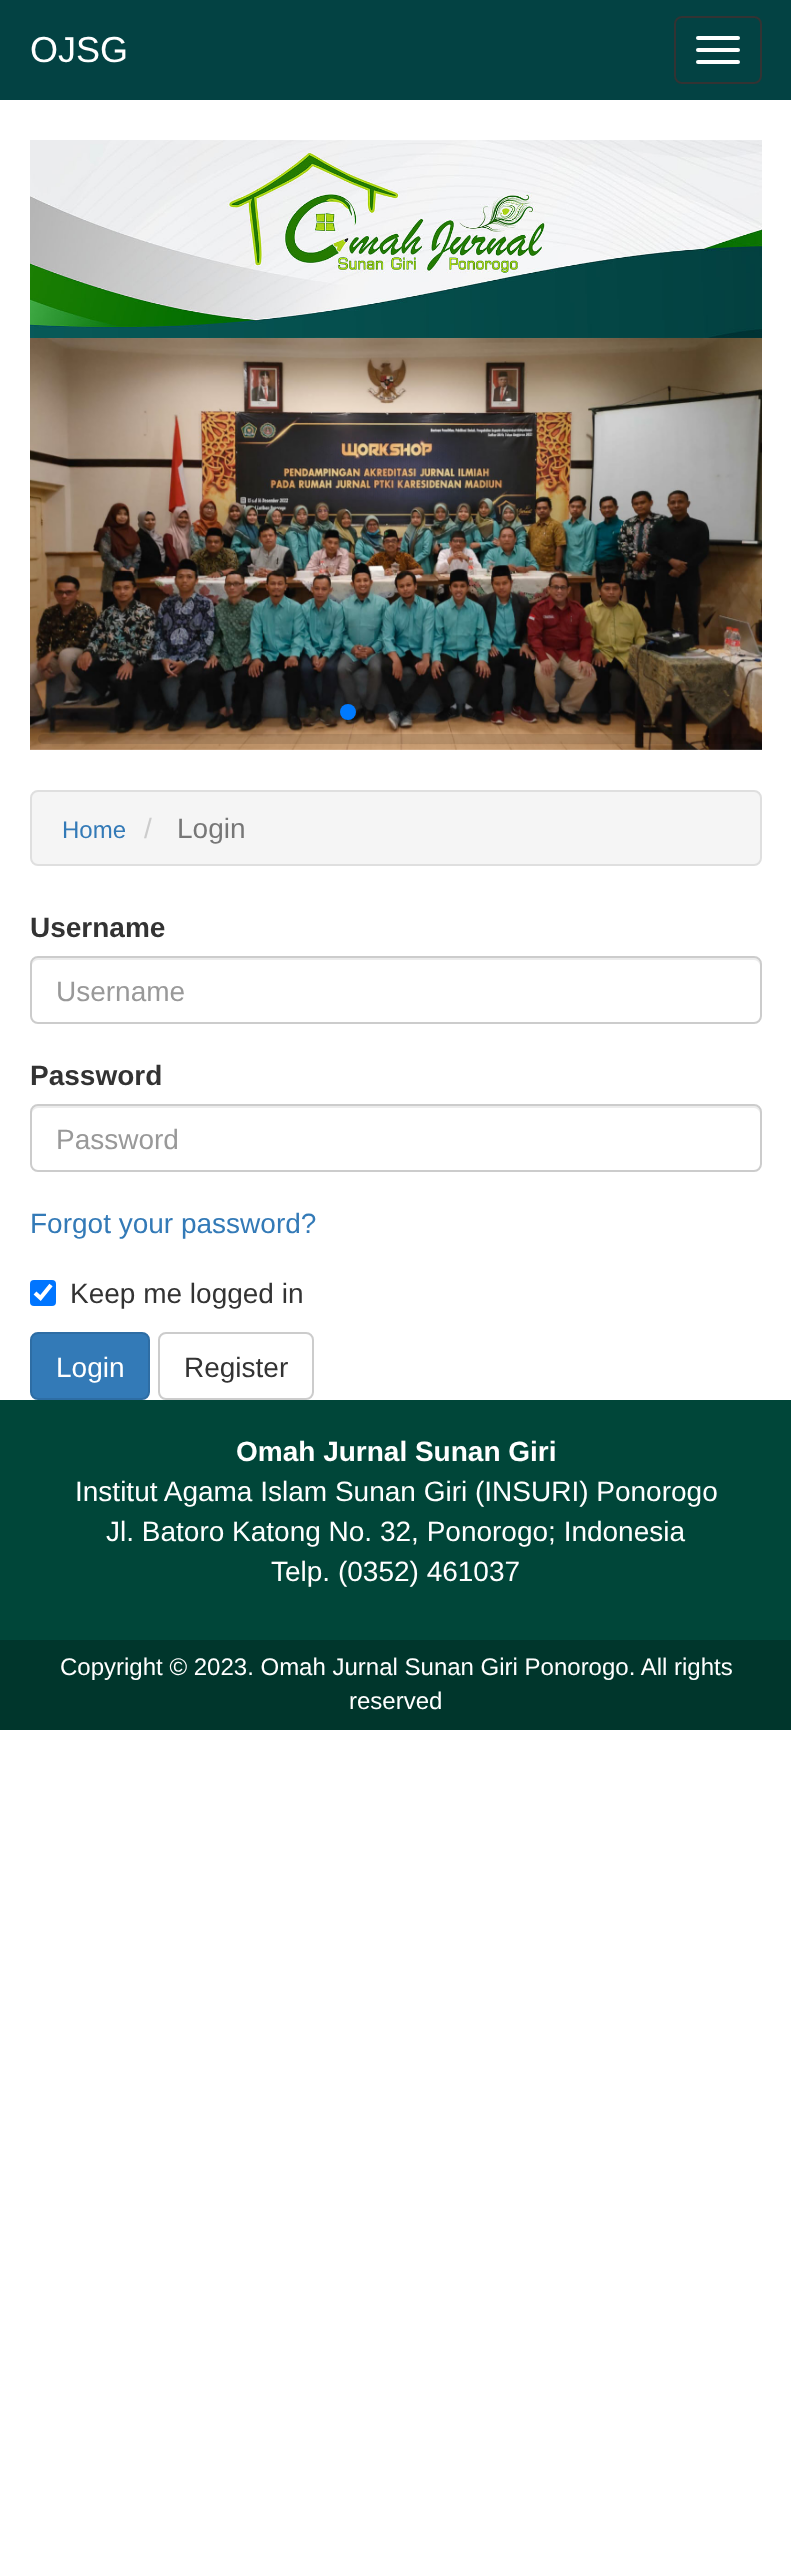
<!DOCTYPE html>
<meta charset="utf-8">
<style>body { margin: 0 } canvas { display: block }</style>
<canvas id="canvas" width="791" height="2561"></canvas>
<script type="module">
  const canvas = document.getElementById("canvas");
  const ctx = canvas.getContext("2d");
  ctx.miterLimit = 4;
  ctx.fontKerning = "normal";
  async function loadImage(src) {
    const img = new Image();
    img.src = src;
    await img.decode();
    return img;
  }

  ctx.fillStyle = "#ffffff";
  ctx.fillRect(0, 0, 791, 2561);
  ctx.fillStyle = "#034243";
  ctx.fillRect(0, 0, 791, 100);
  ctx.font = "36px Liberation Sans";
  ctx.fillStyle = "#ffffff";
  ctx.fillText("OJSG", 30, 62);
  ctx.beginPath();
  ctx.roundRect(675, 17, 86, 66, 7);
  ctx.strokeStyle = "#333333";
  ctx.lineWidth = 2;
  ctx.stroke();
  ctx.beginPath();
  ctx.roundRect(696, 36, 44, 4, 2);
  ctx.fill();
  ctx.beginPath();
  ctx.roundRect(696, 48, 44, 4, 2);
  ctx.fill();
  ctx.beginPath();
  ctx.roundRect(696, 60, 44, 4, 2);
  ctx.fill();
  ctx.drawImage(await loadImage("img1.png"), 30, 140, 732, 198);
  ctx.drawImage(await loadImage("img2.png"), 30, 338, 732, 412);
  ctx.fillStyle = "#007aff";
  ctx.beginPath();
  ctx.arc(348, 712, 8, 0, Math.PI * 2);
  ctx.fill();
  ctx.fillStyle = "rgba(0, 0, 0, 0.2)";
  ctx.beginPath();
  ctx.arc(380, 712, 8, 0, Math.PI * 2);
  ctx.fill();
  ctx.beginPath();
  ctx.arc(412, 712, 8, 0, Math.PI * 2);
  ctx.fill();
  ctx.beginPath();
  ctx.arc(444, 712, 8, 0, Math.PI * 2);
  ctx.fill();
  ctx.fillStyle = "rgba(0, 0, 0, 0.1)";
  ctx.beginPath();
  ctx.roundRect(38, 734, 716, 10, 5);
  ctx.fill();
  ctx.fillStyle = "#f5f5f5";
  ctx.beginPath();
  ctx.roundRect(31, 791, 730, 74, 7);
  ctx.fill();
  ctx.strokeStyle = "#dfdfdf";
  ctx.stroke();
  ctx.font = "24px Liberation Sans";
  ctx.fillStyle = "#337ab7";
  ctx.fillText("Home", 62, 838);
  ctx.font = "28px Liberation Sans";
  ctx.fillStyle = "#cccccc";
  ctx.fillText("/", 144, 838);
  ctx.fillStyle = "#777777";
  ctx.fillText("Login", 177, 838);
  ctx.font = "bold 28px Liberation Sans";
  ctx.fillStyle = "#333333";
  ctx.fillText("Username", 30, 937);
  ctx.fillStyle = "#ececec";
  ctx.beginPath();
  ctx.moveTo(38, 960);
  ctx.lineTo(754, 960);
  ctx.bezierCurveTo(757, 960, 760, 963, 760, 966);
  ctx.lineTo(760, 964);
  ctx.bezierCurveTo(760, 961, 757, 958, 754, 958);
  ctx.lineTo(38, 958);
  ctx.bezierCurveTo(35, 958, 32, 961, 32, 964);
  ctx.lineTo(32, 966);
  ctx.bezierCurveTo(32, 963, 35, 960, 38, 960);
  ctx.closePath();
  ctx.fill();
  ctx.beginPath();
  ctx.roundRect(31, 957, 730, 66, 7);
  ctx.strokeStyle = "#cccccc";
  ctx.stroke();
  ctx.font = "28px Liberation Sans";
  ctx.fillStyle = "#999999";
  ctx.fillText("Username", 56, 1001);
  ctx.font = "bold 28px Liberation Sans";
  ctx.fillStyle = "#333333";
  ctx.fillText("Password", 30, 1085);
  ctx.fillStyle = "#ececec";
  ctx.beginPath();
  ctx.moveTo(38, 1108);
  ctx.lineTo(754, 1108);
  ctx.bezierCurveTo(757, 1108, 760, 1111, 760, 1114);
  ctx.lineTo(760, 1112);
  ctx.bezierCurveTo(760, 1109, 757, 1106, 754, 1106);
  ctx.lineTo(38, 1106);
  ctx.bezierCurveTo(35, 1106, 32, 1109, 32, 1112);
  ctx.lineTo(32, 1114);
  ctx.bezierCurveTo(32, 1111, 35, 1108, 38, 1108);
  ctx.closePath();
  ctx.fill();
  ctx.beginPath();
  ctx.roundRect(31, 1105, 730, 66, 7);
  ctx.stroke();
  ctx.font = "28px Liberation Sans";
  ctx.fillStyle = "#999999";
  ctx.fillText("Password", 56, 1149);
  ctx.fillStyle = "#337ab7";
  ctx.fillText("Forgot your password?", 30, 1233);
  ctx.fillStyle = "#0075ff";
  ctx.beginPath();
  ctx.roundRect(30, 1280, 26, 26, 4);
  ctx.fill();
  ctx.beginPath();
  ctx.moveTo(35, 1293);
  ctx.lineTo(40.5, 1298);
  ctx.lineTo(51, 1285);
  ctx.strokeStyle = "#ffffff";
  ctx.lineWidth = 4.2;
  ctx.stroke();
  ctx.fillStyle = "#333333";
  ctx.fillText("Keep me logged in", 70, 1303);
  ctx.fillStyle = "#337ab7";
  ctx.beginPath();
  ctx.roundRect(31, 1333, 118, 66, 7);
  ctx.fill();
  ctx.strokeStyle = "#2e6da4";
  ctx.lineWidth = 2;
  ctx.stroke();
  ctx.fillStyle = "#ffffff";
  ctx.fillText("Login", 56, 1377);
  ctx.beginPath();
  ctx.roundRect(159, 1333, 154, 66, 7);
  ctx.strokeStyle = "#cccccc";
  ctx.stroke();
  ctx.fillStyle = "#333333";
  ctx.fillText("Register", 184, 1377);
  ctx.fillStyle = "#004639";
  ctx.fillRect(0, 1400, 791, 240);
  ctx.font = "bold 28px Liberation Sans";
  ctx.fillStyle = "#ffffff";
  ctx.fillText("Omah Jurnal Sunan Giri", 236, 1461);
  ctx.font = "28px Liberation Sans";
  ctx.fillText("Institut Agama Islam Sunan Giri (INSURI) Ponorogo", 75, 1501);
  ctx.fillText("Jl. Batoro Katong No. 32, Ponorogo; Indonesia", 106, 1541);
  ctx.fillText("Telp. (0352) 461037", 271, 1581);
  ctx.fillStyle = "#00362c";
  ctx.fillRect(0, 1640, 791, 90);
  ctx.font = "24px Liberation Sans";
  ctx.fillStyle = "#ffffff";
  ctx.fillText("Copyright © 2023. Omah Jurnal Sunan Giri Ponorogo. All rights", 60, 1675);
  ctx.fillText("reserved", 349, 1709);
</script>
